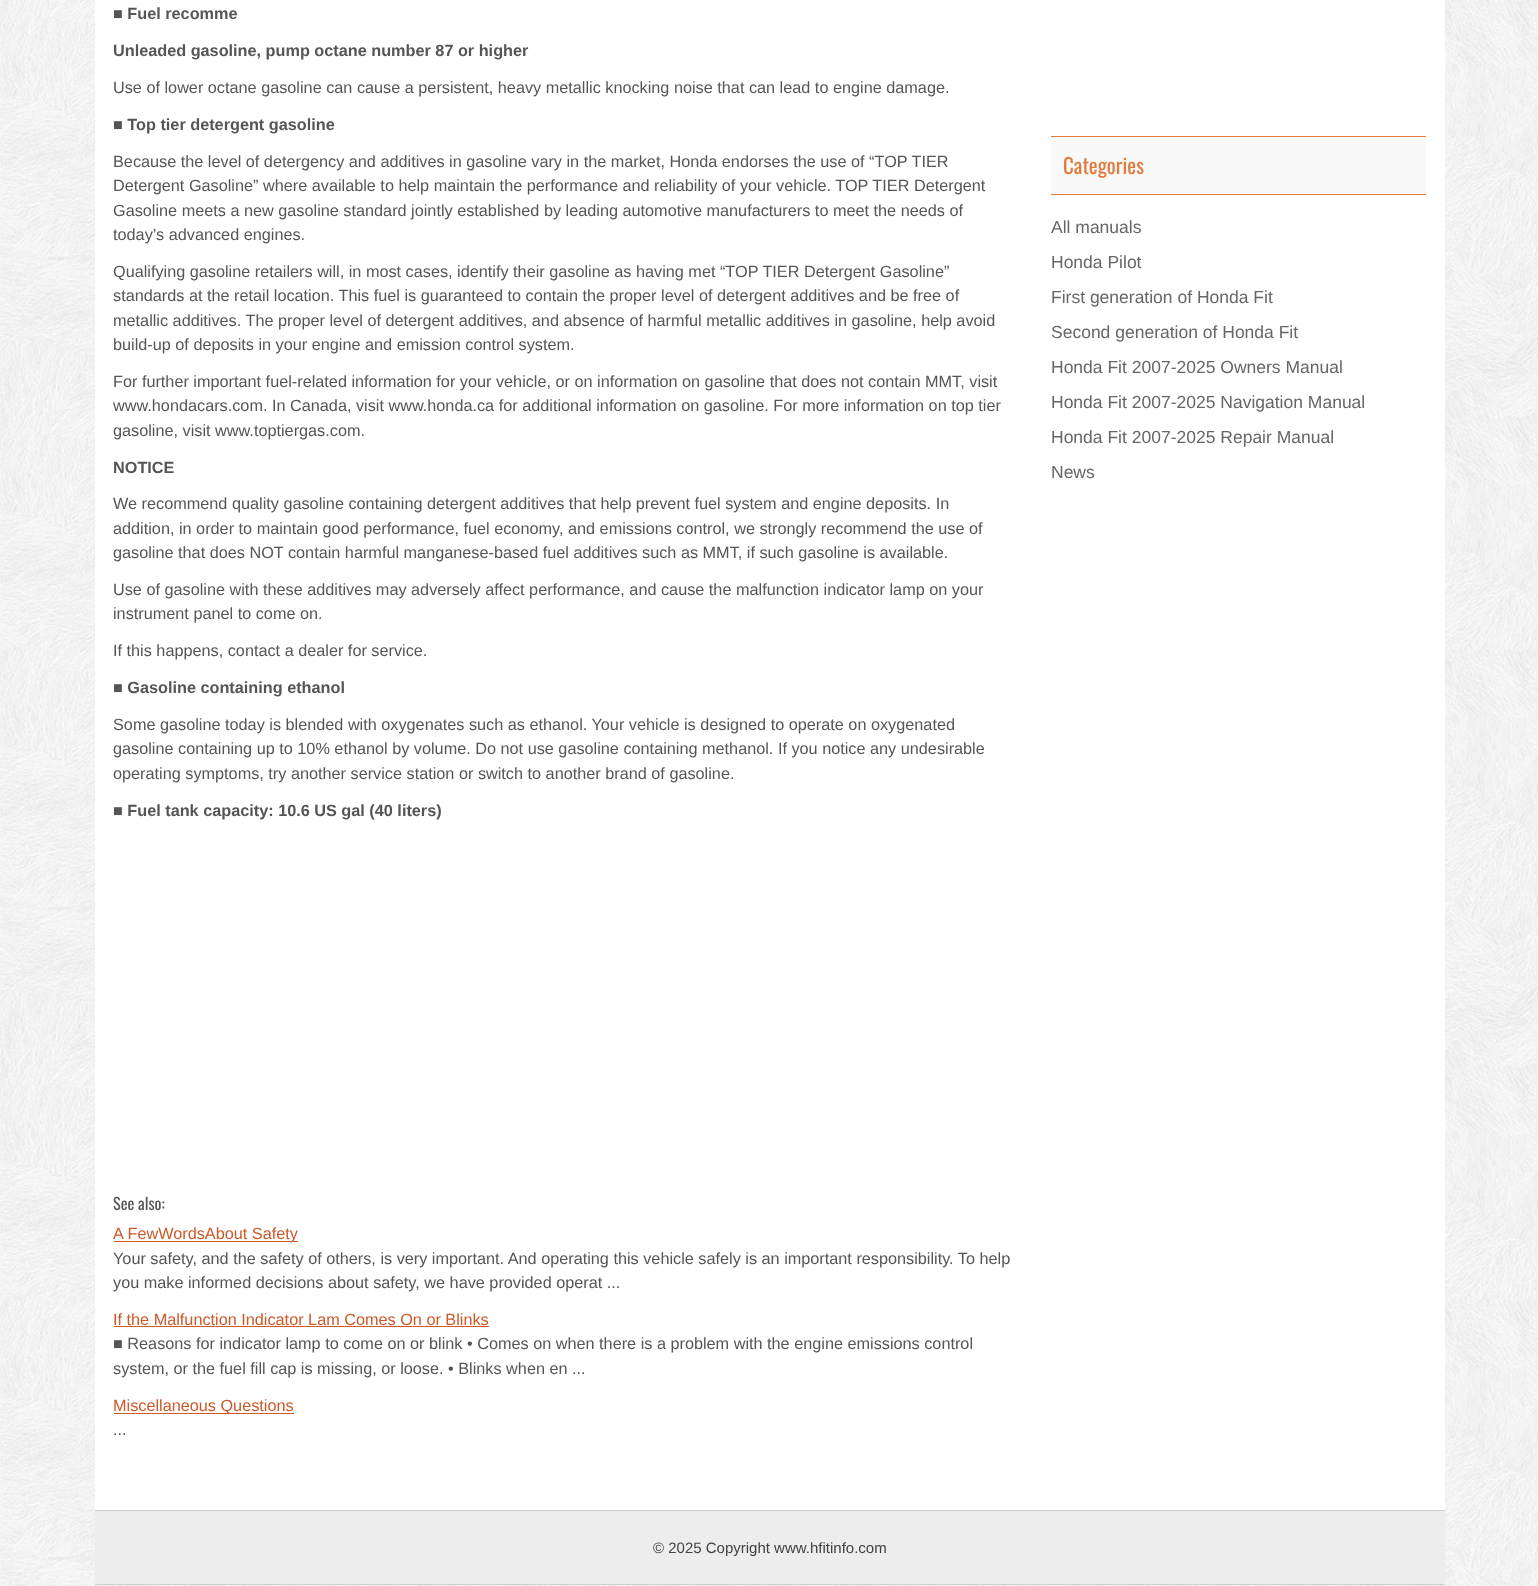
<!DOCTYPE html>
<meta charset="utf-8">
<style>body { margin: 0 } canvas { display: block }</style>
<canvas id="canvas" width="1538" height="1586"></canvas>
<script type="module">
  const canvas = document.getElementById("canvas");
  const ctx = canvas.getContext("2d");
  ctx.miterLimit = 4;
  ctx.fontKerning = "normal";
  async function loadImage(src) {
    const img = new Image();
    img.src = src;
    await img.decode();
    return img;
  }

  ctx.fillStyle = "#ffffff";
  ctx.fillRect(0, 0, 1538, 1586);
  ctx.drawImage(await loadImage("img1.png"), 0, 0, 1538, 1586);
  ctx.fillRect(95, 0, 1350, 1510);
  ctx.font = "bold 16.25px Liberation Sans";
  ctx.fillStyle = "#555555";
  ctx.fillText("■ Fuel recomme", 113, 19);
  ctx.fillText("Unleaded gasoline, pump octane number 87 or higher", 113, 56);
  ctx.font = "16.25px Liberation Sans";
  ctx.fillText("Use of lower octane gasoline can cause a persistent, heavy metallic knocking noise that can lead to engine damage.", 113, 93);
  ctx.font = "bold 16.25px Liberation Sans";
  ctx.fillText("■ Top tier detergent gasoline", 113, 130);
  ctx.font = "16.25px Liberation Sans";
  ctx.fillText("Because the level of detergency and additives in gasoline vary in the market, Honda endorses the use of “TOP TIER", 113, 167);
  ctx.fillText("Detergent Gasoline” where available to help maintain the performance and reliability of your vehicle. TOP TIER Detergent", 113, 191);
  ctx.fillText("Gasoline meets a new gasoline standard jointly established by leading automotive manufacturers to meet the needs of", 113, 216);
  ctx.fillText("today’s advanced engines.", 113, 240);
  ctx.fillText("Qualifying gasoline retailers will, in most cases, identify their gasoline as having met “TOP TIER Detergent Gasoline”", 113, 277);
  ctx.fillText("standards at the retail location. This fuel is guaranteed to contain the proper level of detergent additives and be free of", 113, 301);
  ctx.fillText("metallic additives. The proper level of detergent additives, and absence of harmful metallic additives in gasoline, help avoid", 113, 326);
  ctx.fillText("build-up of deposits in your engine and emission control system.", 113, 350);
  ctx.fillText("For further important fuel-related information for your vehicle, or on information on gasoline that does not contain MMT, visit", 113, 387);
  ctx.fillText("www.hondacars.com. In Canada, visit www.honda.ca for additional information on gasoline. For more information on top tier", 113, 411);
  ctx.fillText("gasoline, visit www.toptiergas.com.", 113, 436);
  ctx.font = "bold 16.25px Liberation Sans";
  ctx.fillText("NOTICE", 113, 473);
  ctx.font = "16.25px Liberation Sans";
  ctx.fillText("We recommend quality gasoline containing detergent additives that help prevent fuel system and engine deposits. In", 113, 509);
  ctx.fillText("addition, in order to maintain good performance, fuel economy, and emissions control, we strongly recommend the use of", 113, 534);
  ctx.fillText("gasoline that does NOT contain harmful manganese-based fuel additives such as MMT, if such gasoline is available.", 113, 558);
  ctx.fillText("Use of gasoline with these additives may adversely affect performance, and cause the malfunction indicator lamp on your", 113, 595);
  ctx.fillText("instrument panel to come on.", 113, 619);
  ctx.fillText("If this happens, contact a dealer for service.", 113, 656);
  ctx.font = "bold 16.25px Liberation Sans";
  ctx.fillText("■ Gasoline containing ethanol", 113, 693);
  ctx.font = "16.25px Liberation Sans";
  ctx.fillText("Some gasoline today is blended with oxygenates such as ethanol. Your vehicle is designed to operate on oxygenated", 113, 730);
  ctx.fillText("gasoline containing up to 10% ethanol by volume. Do not use gasoline containing methanol. If you notice any undesirable", 113, 754);
  ctx.fillText("operating symptoms, try another service station or switch to another brand of gasoline.", 113, 779);
  ctx.font = "bold 16.25px Liberation Sans";
  ctx.fillText("■ Fuel tank capacity: 10.6 US gal (40 liters)", 113, 816);
  ctx.font = "16.25px Oswald";
  ctx.fillText("See also:", 113, 1210);
  ctx.fillStyle = "#cd5929";
  ctx.fillRect(114, 1241, 184, 1);
  ctx.font = "16.25px Liberation Sans";
  ctx.fillText("A FewWordsAbout Safety", 113, 1239);
  ctx.fillStyle = "#555555";
  ctx.fillText("Your safety, and the safety of others, is very important. And operating this vehicle safely is an important responsibility. To help", 113, 1264);
  ctx.fillText("you make informed decisions about safety, we have provided operat ...", 113, 1288);
  ctx.fillStyle = "#cd5929";
  ctx.fillText("If the Malfunction Indicator Lam Comes On or Blinks", 113, 1325);
  ctx.fillRect(114, 1326, 375, 1);
  ctx.fillStyle = "#555555";
  ctx.fillText("■ Reasons for indicator lamp to come on or blink • Comes on when there is a problem with the engine emissions control", 113, 1349);
  ctx.fillText("system, or the fuel fill cap is missing, or loose. • Blinks when en ...", 113, 1374);
  ctx.fillStyle = "#cd5929";
  ctx.fillRect(114, 1413, 180, 1);
  ctx.fillText("Miscellaneous Questions", 113, 1411);
  ctx.fillStyle = "#555555";
  ctx.fillText("...", 113, 1435);
  ctx.fillStyle = "#f9f9f9";
  ctx.fillRect(1051, 137, 375, 57);
  ctx.fillStyle = "#e27c3e";
  ctx.fillRect(1051, 136, 375, 1);
  ctx.fillRect(1051, 194, 375, 1);
  ctx.font = "21px Oswald";
  ctx.fillText("Categories", 1063, 174);
  ctx.font = "17.5px Liberation Sans";
  ctx.fillStyle = "#666666";
  ctx.fillText("All manuals", 1051, 233);
  ctx.fillText("Honda Pilot", 1051, 268);
  ctx.fillText("First generation of Honda Fit", 1051, 303);
  ctx.fillText("Second generation of Honda Fit", 1051, 338);
  ctx.fillText("Honda Fit 2007-2025 Owners Manual", 1051, 373);
  ctx.fillText("Honda Fit 2007-2025 Navigation Manual", 1051, 408);
  ctx.fillText("Honda Fit 2007-2025 Repair Manual", 1051, 443);
  ctx.fillText("News", 1051, 478);
  ctx.fillStyle = "#ededed";
  ctx.fillRect(95, 1511, 1350, 73);
  ctx.fillStyle = "#cdcdcd";
  ctx.fillRect(95, 1510, 1350, 1);
  ctx.fillRect(95, 1584, 1350, 1);
  ctx.font = "15px Liberation Sans";
  ctx.fillStyle = "#434141";
  ctx.fillText("© 2025 Copyright www.hfitinfo.com", 653, 1553);
</script>
